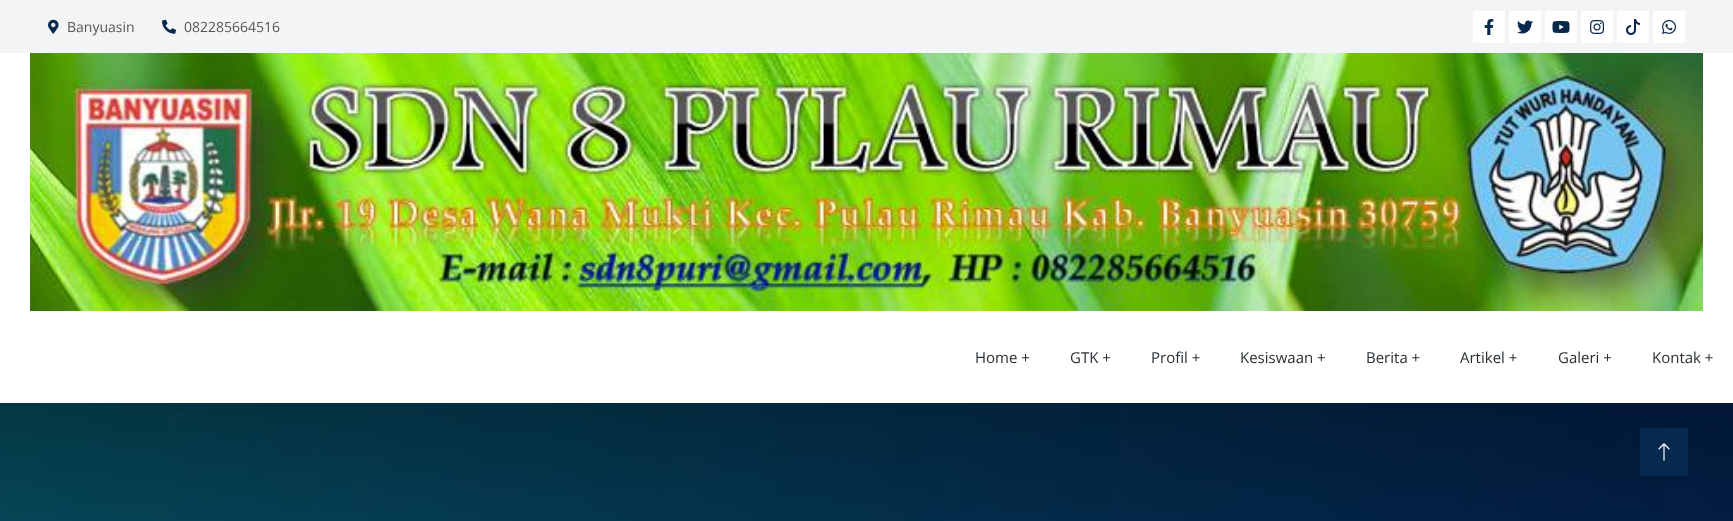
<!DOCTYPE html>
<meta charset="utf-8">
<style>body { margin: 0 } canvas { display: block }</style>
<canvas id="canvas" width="1733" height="521"></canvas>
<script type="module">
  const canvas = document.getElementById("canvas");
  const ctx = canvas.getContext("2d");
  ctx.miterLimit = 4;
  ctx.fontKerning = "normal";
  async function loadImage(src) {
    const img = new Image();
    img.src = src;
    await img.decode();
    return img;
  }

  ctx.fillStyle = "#ffffff";
  ctx.fillRect(0, 0, 1733, 521);
  ctx.fillStyle = "#f3f4f5";
  ctx.fillRect(0, 0, 1733, 53);
  ctx.drawImage(await loadImage("img1.png"), 48, 19, 11, 15);
  ctx.font = "14px Open Sans";
  ctx.fillStyle = "#555555";
  ctx.fillText("Banyuasin", 67, 32);
  ctx.drawImage(await loadImage("img2.png"), 162, 19, 14, 15);
  ctx.fillText("082285664516", 184, 32);
  ctx.fillStyle = "#ffffff";
  ctx.fillRect(1473, 11, 32, 32);
  ctx.drawImage(await loadImage("img3.png"), 1484, 19, 10, 16);
  ctx.fillRect(1509, 11, 32, 32);
  ctx.drawImage(await loadImage("img4.png"), 1517, 20, 16, 14);
  ctx.fillRect(1545, 11, 32, 32);
  ctx.drawImage(await loadImage("img5.png"), 1552, 21, 18, 12);
  ctx.fillRect(1581, 11, 32, 32);
  ctx.drawImage(await loadImage("img6.png"), 1590, 20, 15, 14);
  ctx.fillRect(1617, 11, 32, 32);
  ctx.drawImage(await loadImage("img7.png"), 1626, 19, 14, 16);
  ctx.fillRect(1653, 11, 32, 32);
  ctx.drawImage(await loadImage("img8.png"), 1662, 20, 14, 14);
  ctx.drawImage(await loadImage("img9.png"), 30, 53, 1673, 258);
  ctx.font = "15px Open Sans";
  ctx.fillStyle = "#282f34";
  ctx.fillText("Home +", 975, 363);
  ctx.fillText("GTK +", 1070, 363);
  ctx.fillText("Profil +", 1151, 363);
  ctx.fillText("Kesiswaan +", 1240, 363);
  ctx.fillText("Berita +", 1366, 363);
  ctx.fillText("Artikel +", 1460, 363);
  ctx.fillText("Galeri +", 1558, 363);
  ctx.fillText("Kontak +", 1652, 363);
  ctx.drawImage(await loadImage("img10.png"), 0, 403, 1733, 118);
  ctx.fillStyle = "#07294d";
  ctx.fillRect(1640, 428, 48, 48);
  ctx.drawImage(await loadImage("img11.png"), 1658, 443, 12, 18);
</script>
